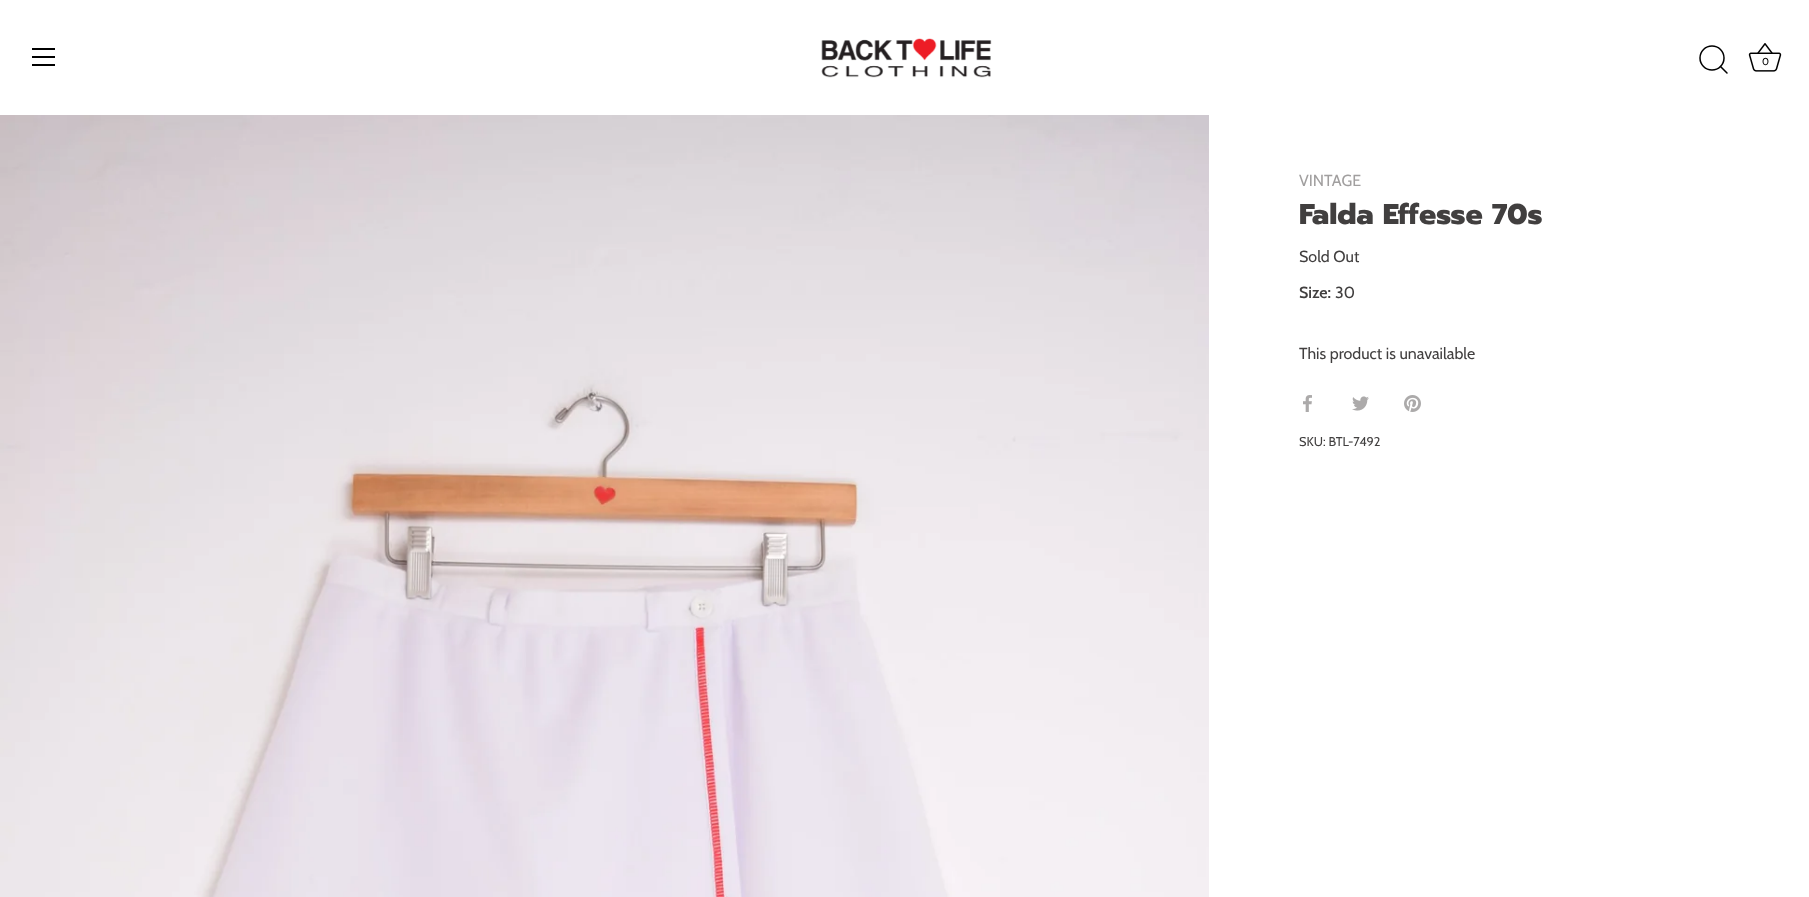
<!DOCTYPE html>
<meta charset="utf-8">
<style>body { margin: 0 } canvas { display: block }</style>
<canvas id="canvas" width="1809" height="897"></canvas>
<script type="module">
  const canvas = document.getElementById("canvas");
  const ctx = canvas.getContext("2d");
  ctx.miterLimit = 4;
  ctx.fontKerning = "normal";
  async function loadImage(src) {
    const img = new Image();
    img.src = src;
    await img.decode();
    return img;
  }

  ctx.fillStyle = "#ffffff";
  ctx.fillRect(0, 0, 1809, 897);
  ctx.fillStyle = "#000000";
  ctx.fillRect(32, 48, 23, 2);
  ctx.fillRect(32, 56, 23, 2);
  ctx.fillRect(32, 64, 23, 2);
  ctx.drawImage(await loadImage("img1.png"), 821, 38, 171, 40);
  ctx.beginPath();
  ctx.arc(1712, 58, 12, 0, Math.PI * 2);
  ctx.strokeStyle = "#000000";
  ctx.lineWidth = 1.5;
  ctx.stroke();
  ctx.beginPath();
  ctx.moveTo(1727, 73);
  ctx.lineTo(1720.5, 66.5);
  ctx.lineCap = "round";
  ctx.lineJoin = "round";
  ctx.stroke();
  ctx.drawImage(await loadImage("img2.png"), 1748, 43, 34, 29);
  ctx.font = "10px Cabin";
  ctx.fillText("0", 1762, 65);
  ctx.drawImage(await loadImage("img3.png"), 0, 115, 1209, 782);
  ctx.font = "16px Cabin";
  ctx.fillStyle = "#a19f9f";
  ctx.fillText("VINTAGE", 1299, 186);
  ctx.font = "800 28.75px Prompt";
  ctx.fillStyle = "#413f3f";
  ctx.fillText("Falda Effesse 70s", 1299, 224);
  ctx.font = "16px Cabin";
  ctx.fillText("Sold Out", 1299, 262);
  ctx.font = "600 16px Cabin";
  ctx.fillText("Size:", 1299, 298);
  ctx.font = "16px Cabin";
  ctx.fillText("30", 1335, 298);
  ctx.fillText("This product is unavailable", 1299, 359);
  ctx.drawImage(await loadImage("img4.png"), 1303, 395, 9, 17);
  ctx.drawImage(await loadImage("img5.png"), 1352, 396, 17, 15);
  ctx.drawImage(await loadImage("img6.png"), 1404, 395, 17, 17);
  ctx.font = "12.75px Cabin";
  ctx.fillText("SKU: BTL-7492", 1299, 446);
</script>
